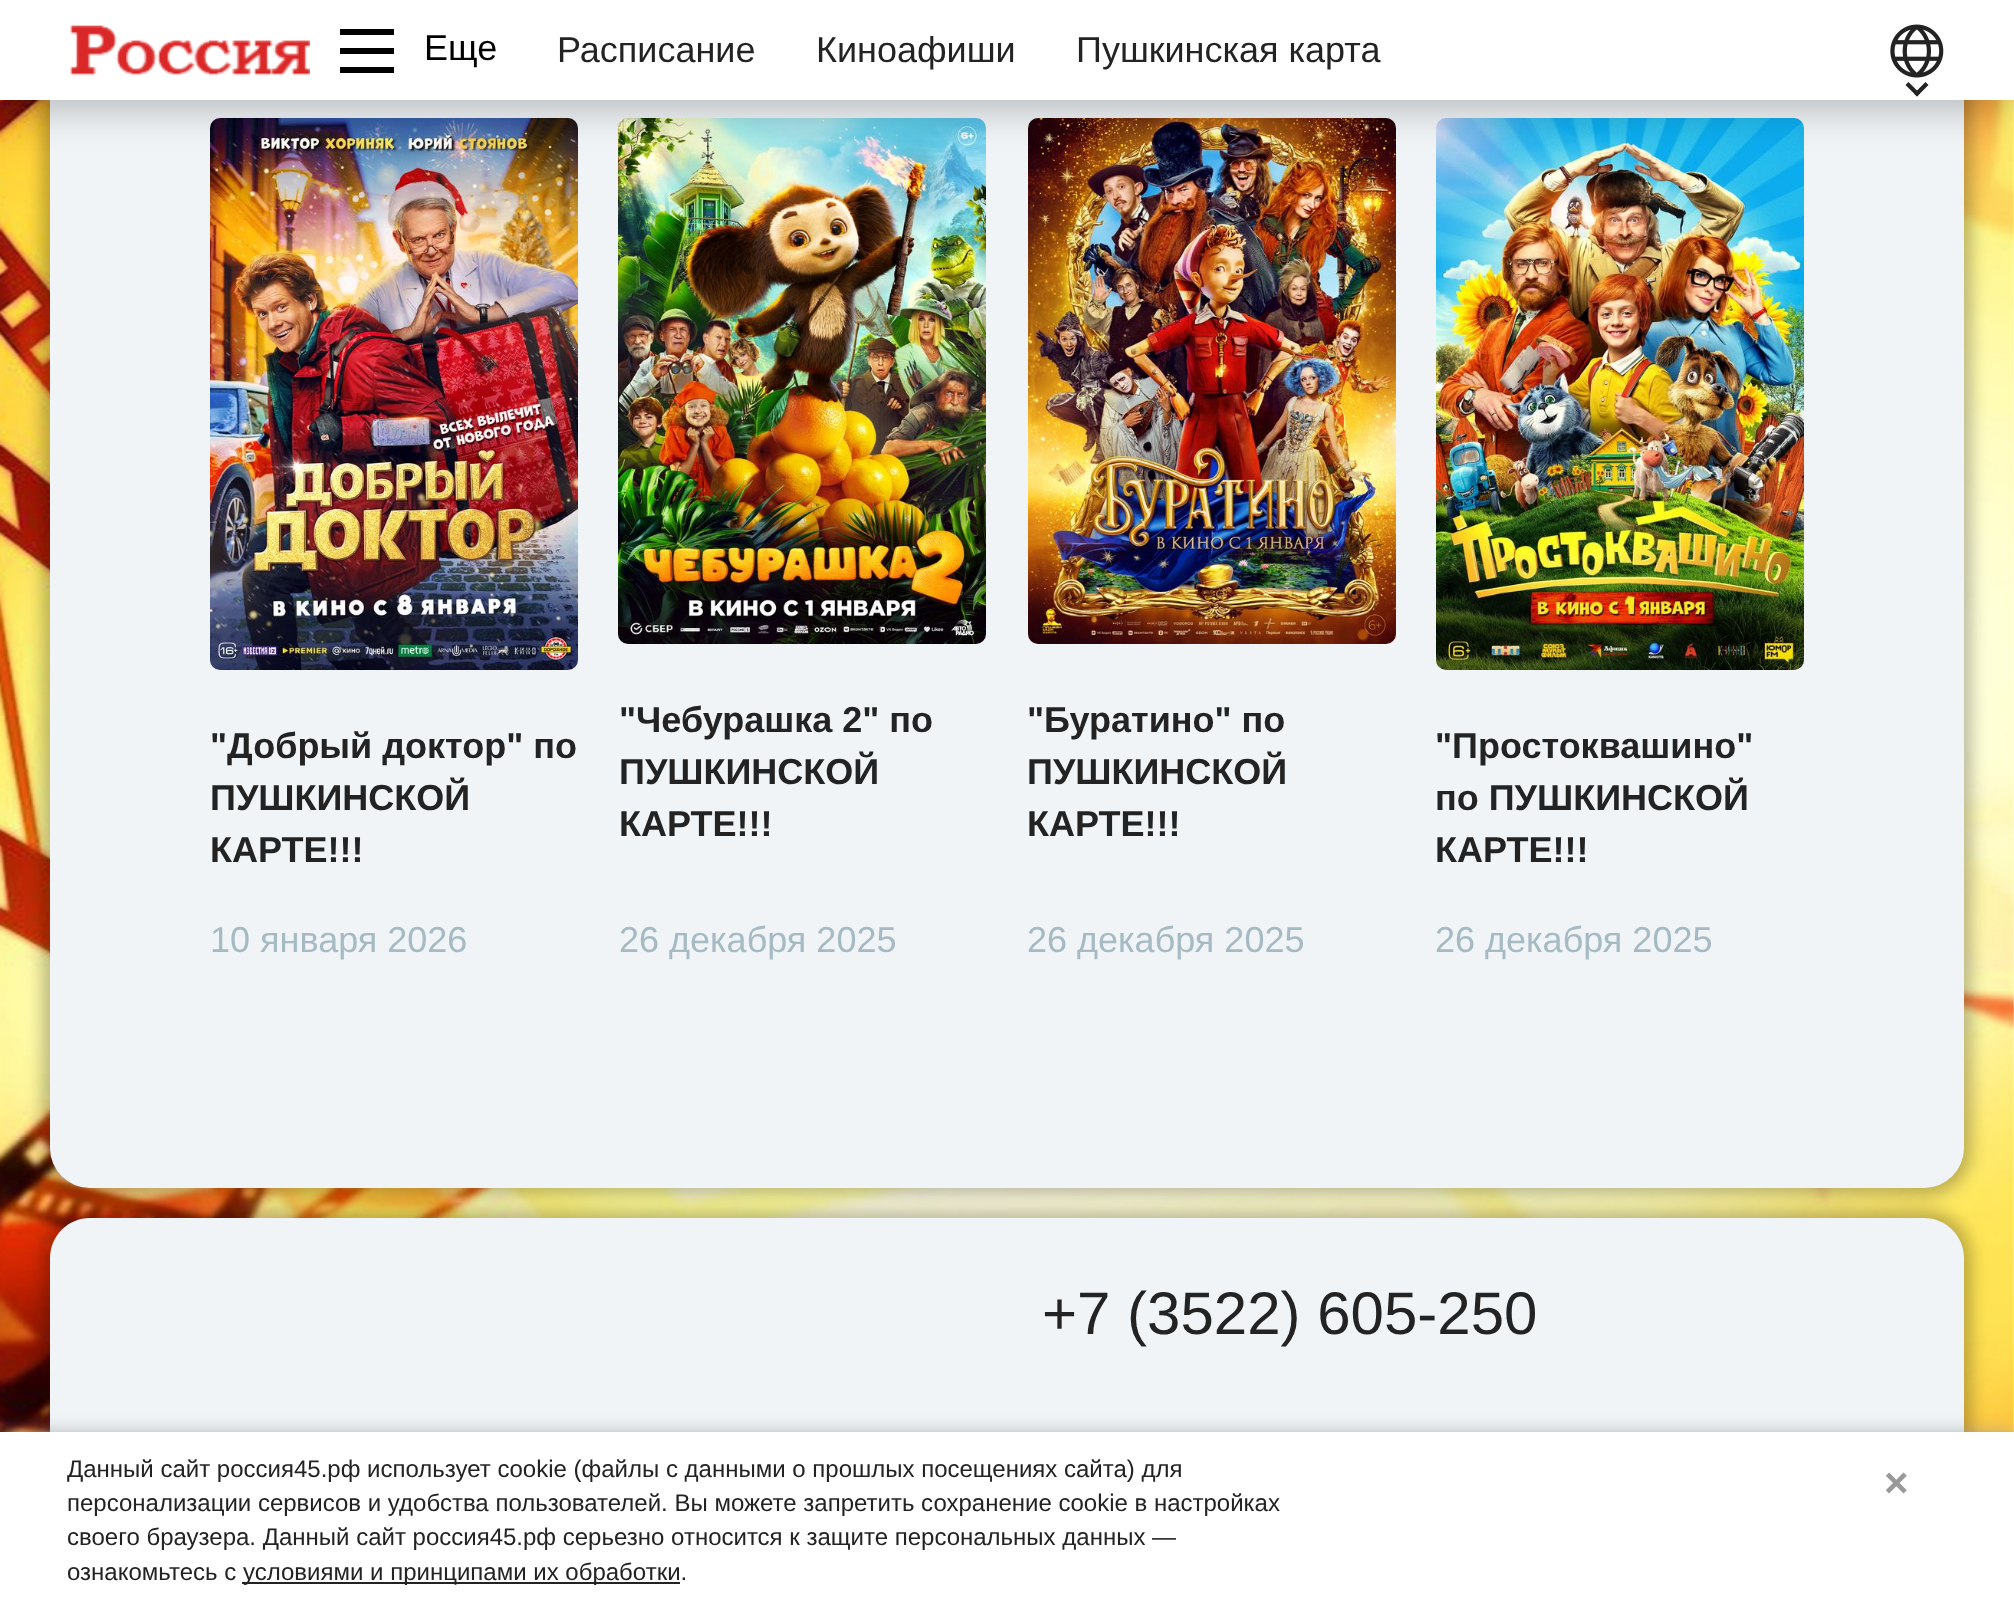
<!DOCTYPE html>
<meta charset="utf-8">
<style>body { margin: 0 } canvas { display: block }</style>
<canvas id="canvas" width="2014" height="1609"></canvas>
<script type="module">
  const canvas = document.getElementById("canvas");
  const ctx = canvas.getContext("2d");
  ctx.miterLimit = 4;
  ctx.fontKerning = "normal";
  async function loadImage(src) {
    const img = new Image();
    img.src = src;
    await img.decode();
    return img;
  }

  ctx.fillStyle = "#ffffff";
  ctx.fillRect(0, 0, 2014, 1609);
  ctx.drawImage(await loadImage("img3.png"), 0, 100, 2014, 1332);
  ctx.fillStyle = "rgba(0, 0, 0, 0.25)";
  ctx.filter = "blur(8px)";
  ctx.beginPath();
  ctx.roundRect(42, 1210, 1930, 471, 48);
  ctx.fill();
  ctx.filter = "none";
  ctx.fillStyle = "#f0f4f7";
  ctx.beginPath();
  ctx.moveTo(90, 1218);
  ctx.lineTo(1924, 1218);
  ctx.bezierCurveTo(1946, 1218, 1964, 1236, 1964, 1258);
  ctx.lineTo(1964, 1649);
  ctx.lineTo(50, 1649);
  ctx.lineTo(50, 1258);
  ctx.bezierCurveTo(50, 1236, 68, 1218, 90, 1218);
  ctx.closePath();
  ctx.fill();
  ctx.fillStyle = "rgba(0, 0, 0, 0.25)";
  ctx.filter = "blur(8px)";
  ctx.beginPath();
  ctx.roundRect(42, -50, 1930, 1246, 48);
  ctx.fill();
  ctx.filter = "none";
  ctx.fillStyle = "#f0f4f7";
  ctx.beginPath();
  ctx.roundRect(50, -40, 1914, 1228, 40);
  ctx.fill();
  ctx.drawImage(await loadImage("img4.png"), 210, 118, 368, 552);
  ctx.drawImage(await loadImage("img5.png"), 618, 118, 368, 526);
  ctx.drawImage(await loadImage("img6.png"), 1028, 118, 368, 526);
  ctx.drawImage(await loadImage("img7.png"), 1436, 118, 368, 552);
  ctx.fillStyle = "rgba(0, 0, 0, 0.25)";
  ctx.filter = "blur(20px)";
  ctx.beginPath();
  ctx.rect(0, 8, 2014, 100);
  ctx.fill();
  ctx.filter = "none";
  ctx.fillStyle = "#ffffff";
  ctx.fillRect(0, 0, 2014, 100);
  ctx.drawImage(await loadImage("img1.png"), 70, 25, 240, 51);
  ctx.fillStyle = "#000000";
  ctx.beginPath();
  ctx.moveTo(340, 73);
  ctx.lineTo(340, 67);
  ctx.lineTo(394, 67);
  ctx.lineTo(394, 73);
  ctx.closePath();
  ctx.moveTo(340, 48);
  ctx.lineTo(394, 48);
  ctx.lineTo(394, 54);
  ctx.lineTo(340, 54);
  ctx.closePath();
  ctx.moveTo(340, 29);
  ctx.lineTo(394, 29);
  ctx.lineTo(394, 35);
  ctx.lineTo(340, 35);
  ctx.closePath();
  ctx.fill("evenodd");
  ctx.font = "36px Liberation Sans";
  ctx.fillText("Еще", 424, 60);
  ctx.fillStyle = "#232323";
  ctx.fillText("Расписание", 557, 62);
  ctx.fillText("Киноафиши", 816, 62);
  ctx.fillText("Пушкинская карта", 1076, 62);
  ctx.drawImage(await loadImage("img2.png"), 1890, 24, 54, 54);
  ctx.beginPath();
  ctx.moveTo(1925.5, 82);
  ctx.lineTo(1928.5, 85);
  ctx.lineTo(1917, 96.5);
  ctx.lineTo(1914, 93.5);
  ctx.closePath();
  ctx.fill();
  ctx.beginPath();
  ctx.moveTo(1908.5, 82);
  ctx.lineTo(1920, 93.5);
  ctx.lineTo(1917, 96.5);
  ctx.lineTo(1905.5, 85);
  ctx.closePath();
  ctx.fill();
  ctx.font = "bold 36px Liberation Sans";
  ctx.fillText("\"Добрый доктор\" по", 210, 758);
  ctx.fillText("ПУШКИНСКОЙ", 210, 810);
  ctx.fillText("КАРТЕ!!!", 210, 862);
  ctx.font = "36px Liberation Sans";
  ctx.fillStyle = "#a6bac3";
  ctx.fillText("10 января 2026", 210, 952);
  ctx.font = "bold 36px Liberation Sans";
  ctx.fillStyle = "#232323";
  ctx.fillText("\"Чебурашка 2\" по", 619, 732);
  ctx.fillText("ПУШКИНСКОЙ", 619, 784);
  ctx.fillText("КАРТЕ!!!", 619, 836);
  ctx.font = "36px Liberation Sans";
  ctx.fillStyle = "#a6bac3";
  ctx.fillText("26 декабря 2025", 619, 952);
  ctx.font = "bold 36px Liberation Sans";
  ctx.fillStyle = "#232323";
  ctx.fillText("\"Буратино\" по", 1027, 732);
  ctx.fillText("ПУШКИНСКОЙ", 1027, 784);
  ctx.fillText("КАРТЕ!!!", 1027, 836);
  ctx.font = "36px Liberation Sans";
  ctx.fillStyle = "#a6bac3";
  ctx.fillText("26 декабря 2025", 1027, 952);
  ctx.font = "bold 36px Liberation Sans";
  ctx.fillStyle = "#232323";
  ctx.fillText("\"Простоквашино\"", 1435, 758);
  ctx.fillText("по ПУШКИНСКОЙ", 1435, 810);
  ctx.fillText("КАРТЕ!!!", 1435, 862);
  ctx.font = "36px Liberation Sans";
  ctx.fillStyle = "#a6bac3";
  ctx.fillText("26 декабря 2025", 1435, 952);
  ctx.font = "60px Liberation Sans";
  ctx.fillStyle = "#232323";
  ctx.fillText("+7 (3522) 605-250", 1042, 1334);
  ctx.fillStyle = "#999999";
  ctx.filter = "blur(10px)";
  ctx.beginPath();
  ctx.rect(0, 1436, 2014, 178);
  ctx.fill();
  ctx.filter = "none";
  ctx.fillStyle = "#ffffff";
  ctx.fillRect(0, 1432, 2014, 177);
  ctx.font = "24px Liberation Sans";
  ctx.fillStyle = "#232323";
  ctx.fillText("Данный сайт россия45.рф использует cookie (файлы с данными о прошлых посещениях сайта) для", 67, 1477);
  ctx.fillText("персонализации сервисов и удобства пользователей. Вы можете запретить сохранение cookie в настройках", 67, 1511);
  ctx.fillText("своего браузера. Данный сайт россия45.рф серьезно относится к защите персональных данных —", 67, 1545);
  ctx.fillText("ознакомьтесь с", 67, 1580);
  ctx.fillRect(242, 1582, 438, 2);
  ctx.fillText("условиями и принципами их обработки.", 243, 1580);
  ctx.font = "bold 42px Liberation Sans";
  ctx.fillStyle = "#999999";
  ctx.fillText("×", 1884, 1497);
</script>
